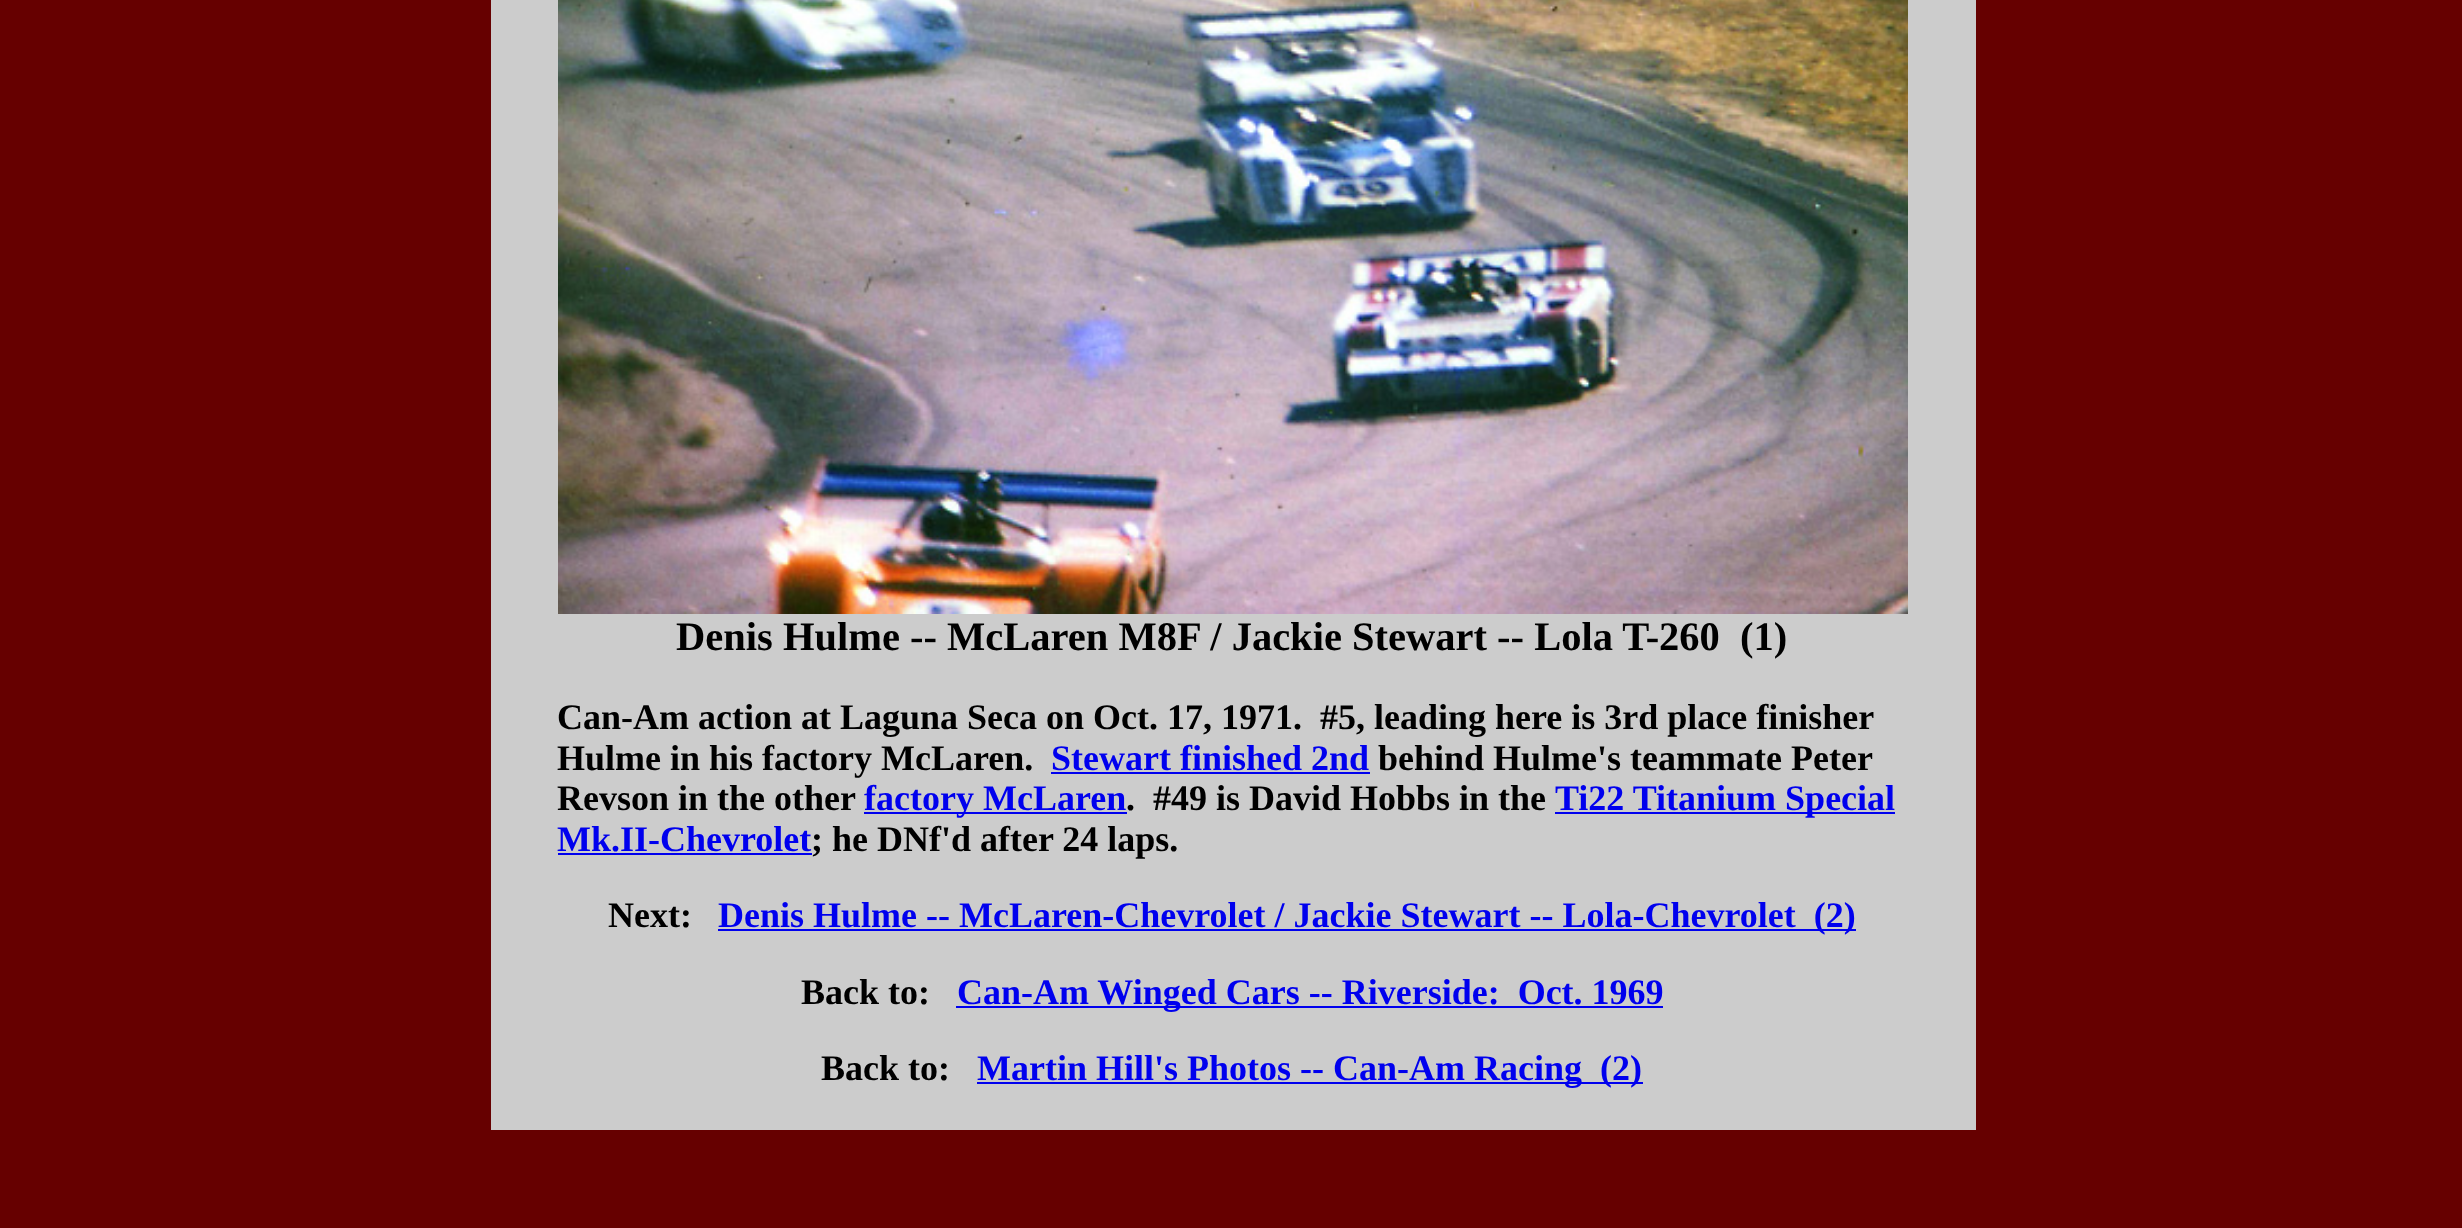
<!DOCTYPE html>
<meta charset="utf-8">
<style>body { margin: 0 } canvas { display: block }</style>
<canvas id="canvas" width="2462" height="1228"></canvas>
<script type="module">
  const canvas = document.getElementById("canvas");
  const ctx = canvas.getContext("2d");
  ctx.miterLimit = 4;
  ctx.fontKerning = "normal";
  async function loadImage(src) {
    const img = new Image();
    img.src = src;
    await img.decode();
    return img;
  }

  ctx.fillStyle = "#660000";
  ctx.fillRect(0, 0, 2462, 1228);
  ctx.fillStyle = "#cccccc";
  ctx.fillRect(491, 0, 1485, 1130);
  ctx.drawImage(await loadImage("img1.png"), 558, 0, 1350, 614);
  ctx.font = "bold 40.5px Liberation Serif";
  ctx.fillStyle = "#000000";
  ctx.fillText("Denis Hulme -- McLaren M8F / Jackie Stewart -- Lola T-260  (1)", 676, 650);
  ctx.font = "bold 36px Liberation Serif";
  ctx.fillText("Can-Am action at Laguna Seca on Oct. 17, 1971.  #5, leading here is 3rd place finisher", 557, 729);
  ctx.fillText("Hulme in his factory McLaren.", 557, 770);
  ctx.fillStyle = "#0000ee";
  ctx.fillText("Stewart finished 2nd", 1051, 770);
  ctx.fillRect(1051, 772, 319, 2);
  ctx.fillStyle = "#000000";
  ctx.fillText("behind Hulme's teammate Peter", 1378, 770);
  ctx.fillText("Revson in the other", 557, 810);
  ctx.fillStyle = "#0000ee";
  ctx.fillRect(864, 812, 263, 2);
  ctx.fillText("factory McLaren", 864, 810);
  ctx.fillStyle = "#000000";
  ctx.fillText(".  #49 is David Hobbs in the", 1126, 810);
  ctx.fillStyle = "#0000ee";
  ctx.fillRect(1555, 812, 340, 2);
  ctx.fillText("Ti22 Titanium Special", 1555, 810);
  ctx.fillText("Mk.II-Chevrolet", 557, 851);
  ctx.fillStyle = "#000000";
  ctx.fillText("; he DNf'd after 24 laps.", 811, 851);
  ctx.fillStyle = "#0000ee";
  ctx.fillRect(558, 853, 254, 2);
  ctx.fillStyle = "#000000";
  ctx.fillText("Next:", 608, 927);
  ctx.fillStyle = "#0000ee";
  ctx.fillRect(718, 929, 1138, 2);
  ctx.fillText("Denis Hulme -- McLaren-Chevrolet / Jackie Stewart -- Lola-Chevrolet  (2)", 718, 927);
  ctx.fillStyle = "#000000";
  ctx.fillText("Back to:", 801, 1004);
  ctx.fillStyle = "#0000ee";
  ctx.fillRect(956, 1006, 707, 2);
  ctx.fillText("Can-Am Winged Cars -- Riverside:  Oct. 1969", 957, 1004);
  ctx.fillStyle = "#000000";
  ctx.fillText("Back to:", 821, 1080);
  ctx.fillStyle = "#0000ee";
  ctx.fillRect(977, 1082, 666, 2);
  ctx.fillText("Martin Hill's Photos -- Can-Am Racing  (2)", 977, 1080);
</script>
